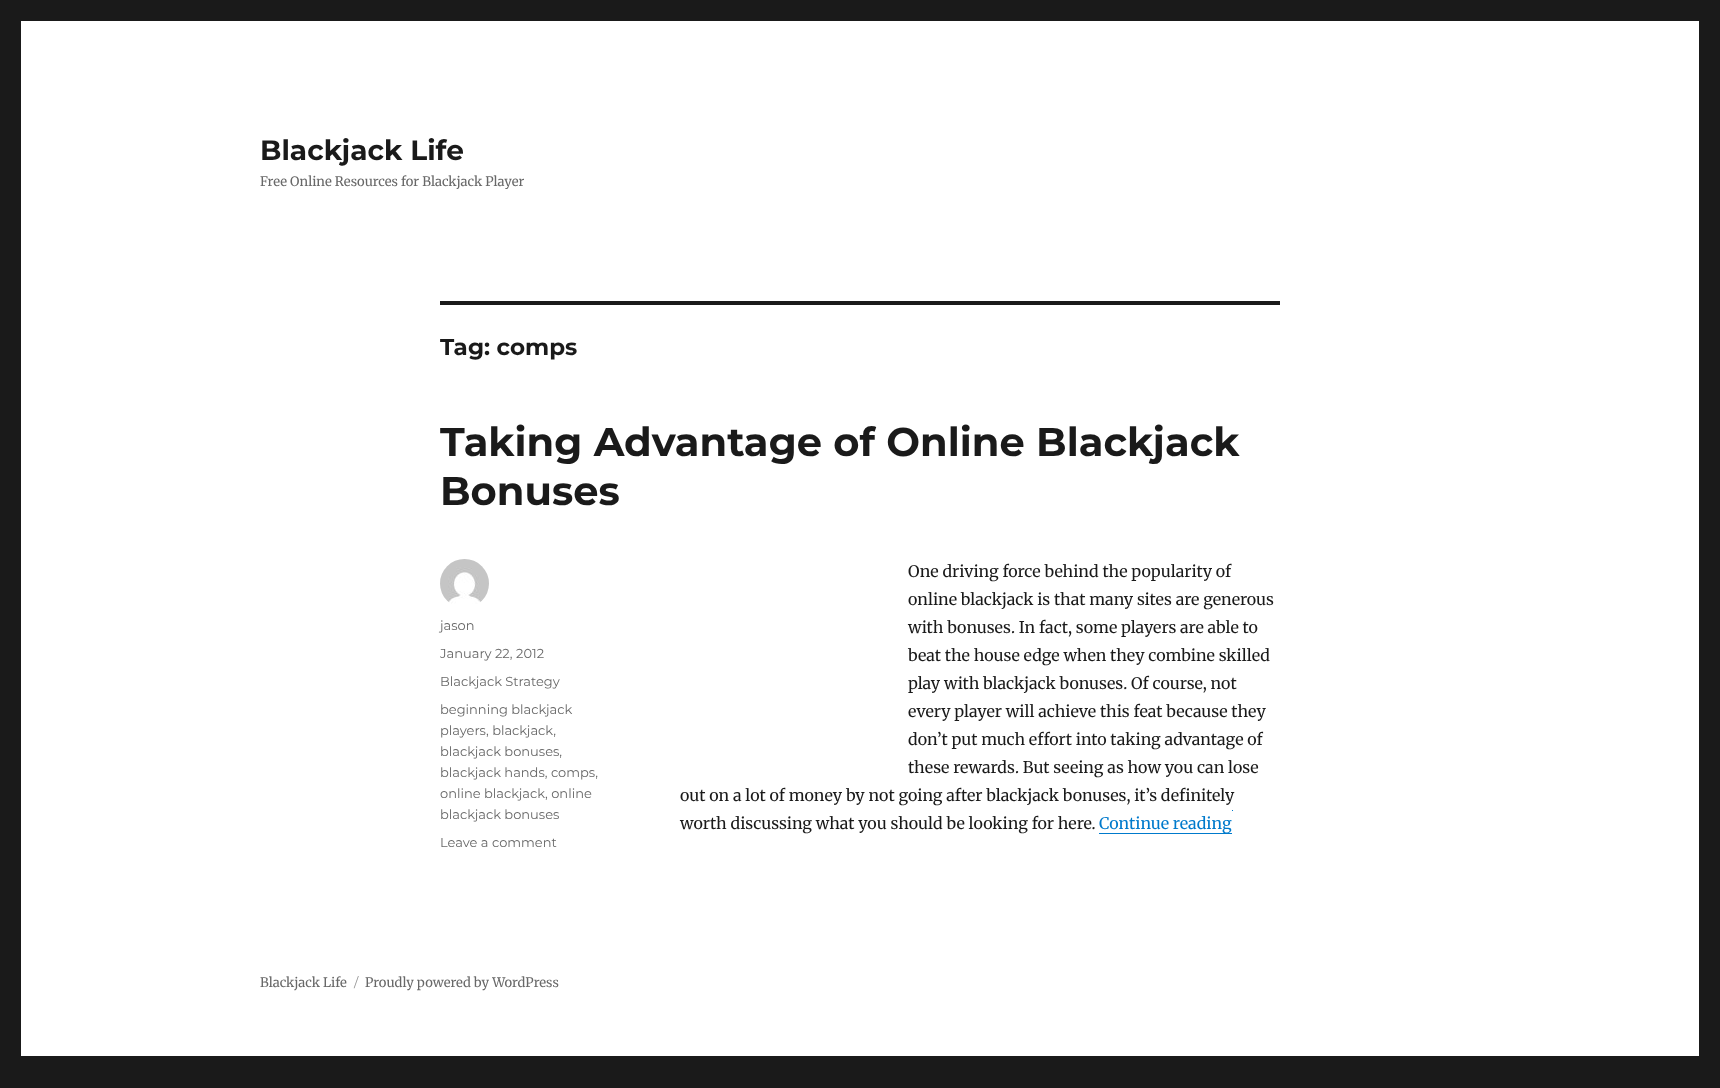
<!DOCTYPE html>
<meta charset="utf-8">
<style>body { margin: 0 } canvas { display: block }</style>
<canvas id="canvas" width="1720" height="1088"></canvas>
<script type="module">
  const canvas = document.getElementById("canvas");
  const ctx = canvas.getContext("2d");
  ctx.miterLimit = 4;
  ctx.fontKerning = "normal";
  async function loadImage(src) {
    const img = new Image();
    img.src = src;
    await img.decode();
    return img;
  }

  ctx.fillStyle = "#1a1a1a";
  ctx.fillRect(0, 0, 1720, 1088);
  ctx.fillStyle = "#ffffff";
  ctx.fillRect(21, 21, 1678, 1035);
  ctx.font = "bold 28px Montserrat";
  ctx.fillStyle = "#1a1a1a";
  ctx.fillText("Blackjack Life", 260, 160);
  ctx.save();
  ctx.beginPath();
  ctx.rect(260, 133, 264, 56);
  ctx.clip();
  ctx.font = "13px Merriweather";
  ctx.fillStyle = "#686868";
  ctx.fillText("Free Online Resources for Blackjack Player", 260, 186);
  ctx.restore();
  ctx.fillRect(440, 301, 840, 4);
  ctx.font = "bold 23px Montserrat";
  ctx.fillText("Tag: comps", 440, 355);
  ctx.font = "bold 40px Montserrat";
  ctx.fillText("Taking Advantage of Online Blackjack", 440, 456);
  ctx.fillText("Bonuses", 440, 505);
  ctx.drawImage(await loadImage("img1.png"), 440, 559, 49, 45);
  ctx.font = "13px Montserrat";
  ctx.fillStyle = "#686868";
  ctx.fillText("jason", 440, 630);
  ctx.fillText("January 22, 2012", 440, 658);
  ctx.fillText("Blackjack Strategy", 440, 686);
  ctx.fillText("beginning blackjack", 440, 714);
  ctx.fillText("players, blackjack,", 440, 735);
  ctx.fillText("blackjack bonuses,", 440, 756);
  ctx.fillText("blackjack hands, comps,", 440, 777);
  ctx.fillText("online blackjack, online", 440, 798);
  ctx.fillText("blackjack bonuses", 440, 819);
  ctx.fillText("Leave a comment", 440, 847);
  ctx.font = "16px Merriweather";
  ctx.fillStyle = "#1a1a1a";
  ctx.fillText("One driving force behind the popularity of", 908, 577);
  ctx.fillText("online blackjack is that many sites are generous", 908, 605);
  ctx.fillText("with bonuses. In fact, some players are able to", 908, 633);
  ctx.fillText("beat the house edge when they combine skilled", 908, 661);
  ctx.fillText("play with blackjack bonuses. Of course, not", 908, 689);
  ctx.fillText("every player will achieve this feat because they", 908, 717);
  ctx.fillText("don’t put much effort into taking advantage of", 908, 745);
  ctx.fillText("these rewards. But seeing as how you can lose", 908, 773);
  ctx.fillText("out on a lot of money by not going after blackjack bonuses, it’s definitely", 680, 801);
  ctx.fillText("worth discussing what you should be looking for here.", 680, 829);
  ctx.fillStyle = "#007acc";
  ctx.fillRect(1099, 833, 133, 1);
  ctx.fillText("Continue reading", 1099, 829);
  ctx.fillRect(1232, 810, 1, 1);
  ctx.font = "13px Merriweather";
  ctx.fillStyle = "#686868";
  ctx.fillText("Blackjack Life", 260, 987);
  ctx.font = "13px Montserrat";
  ctx.fillStyle = "#959595";
  ctx.fillText("/", 354, 987);
  ctx.font = "13px Merriweather";
  ctx.fillStyle = "#686868";
  ctx.fillText("Proudly powered by WordPress", 365, 987);
</script>
